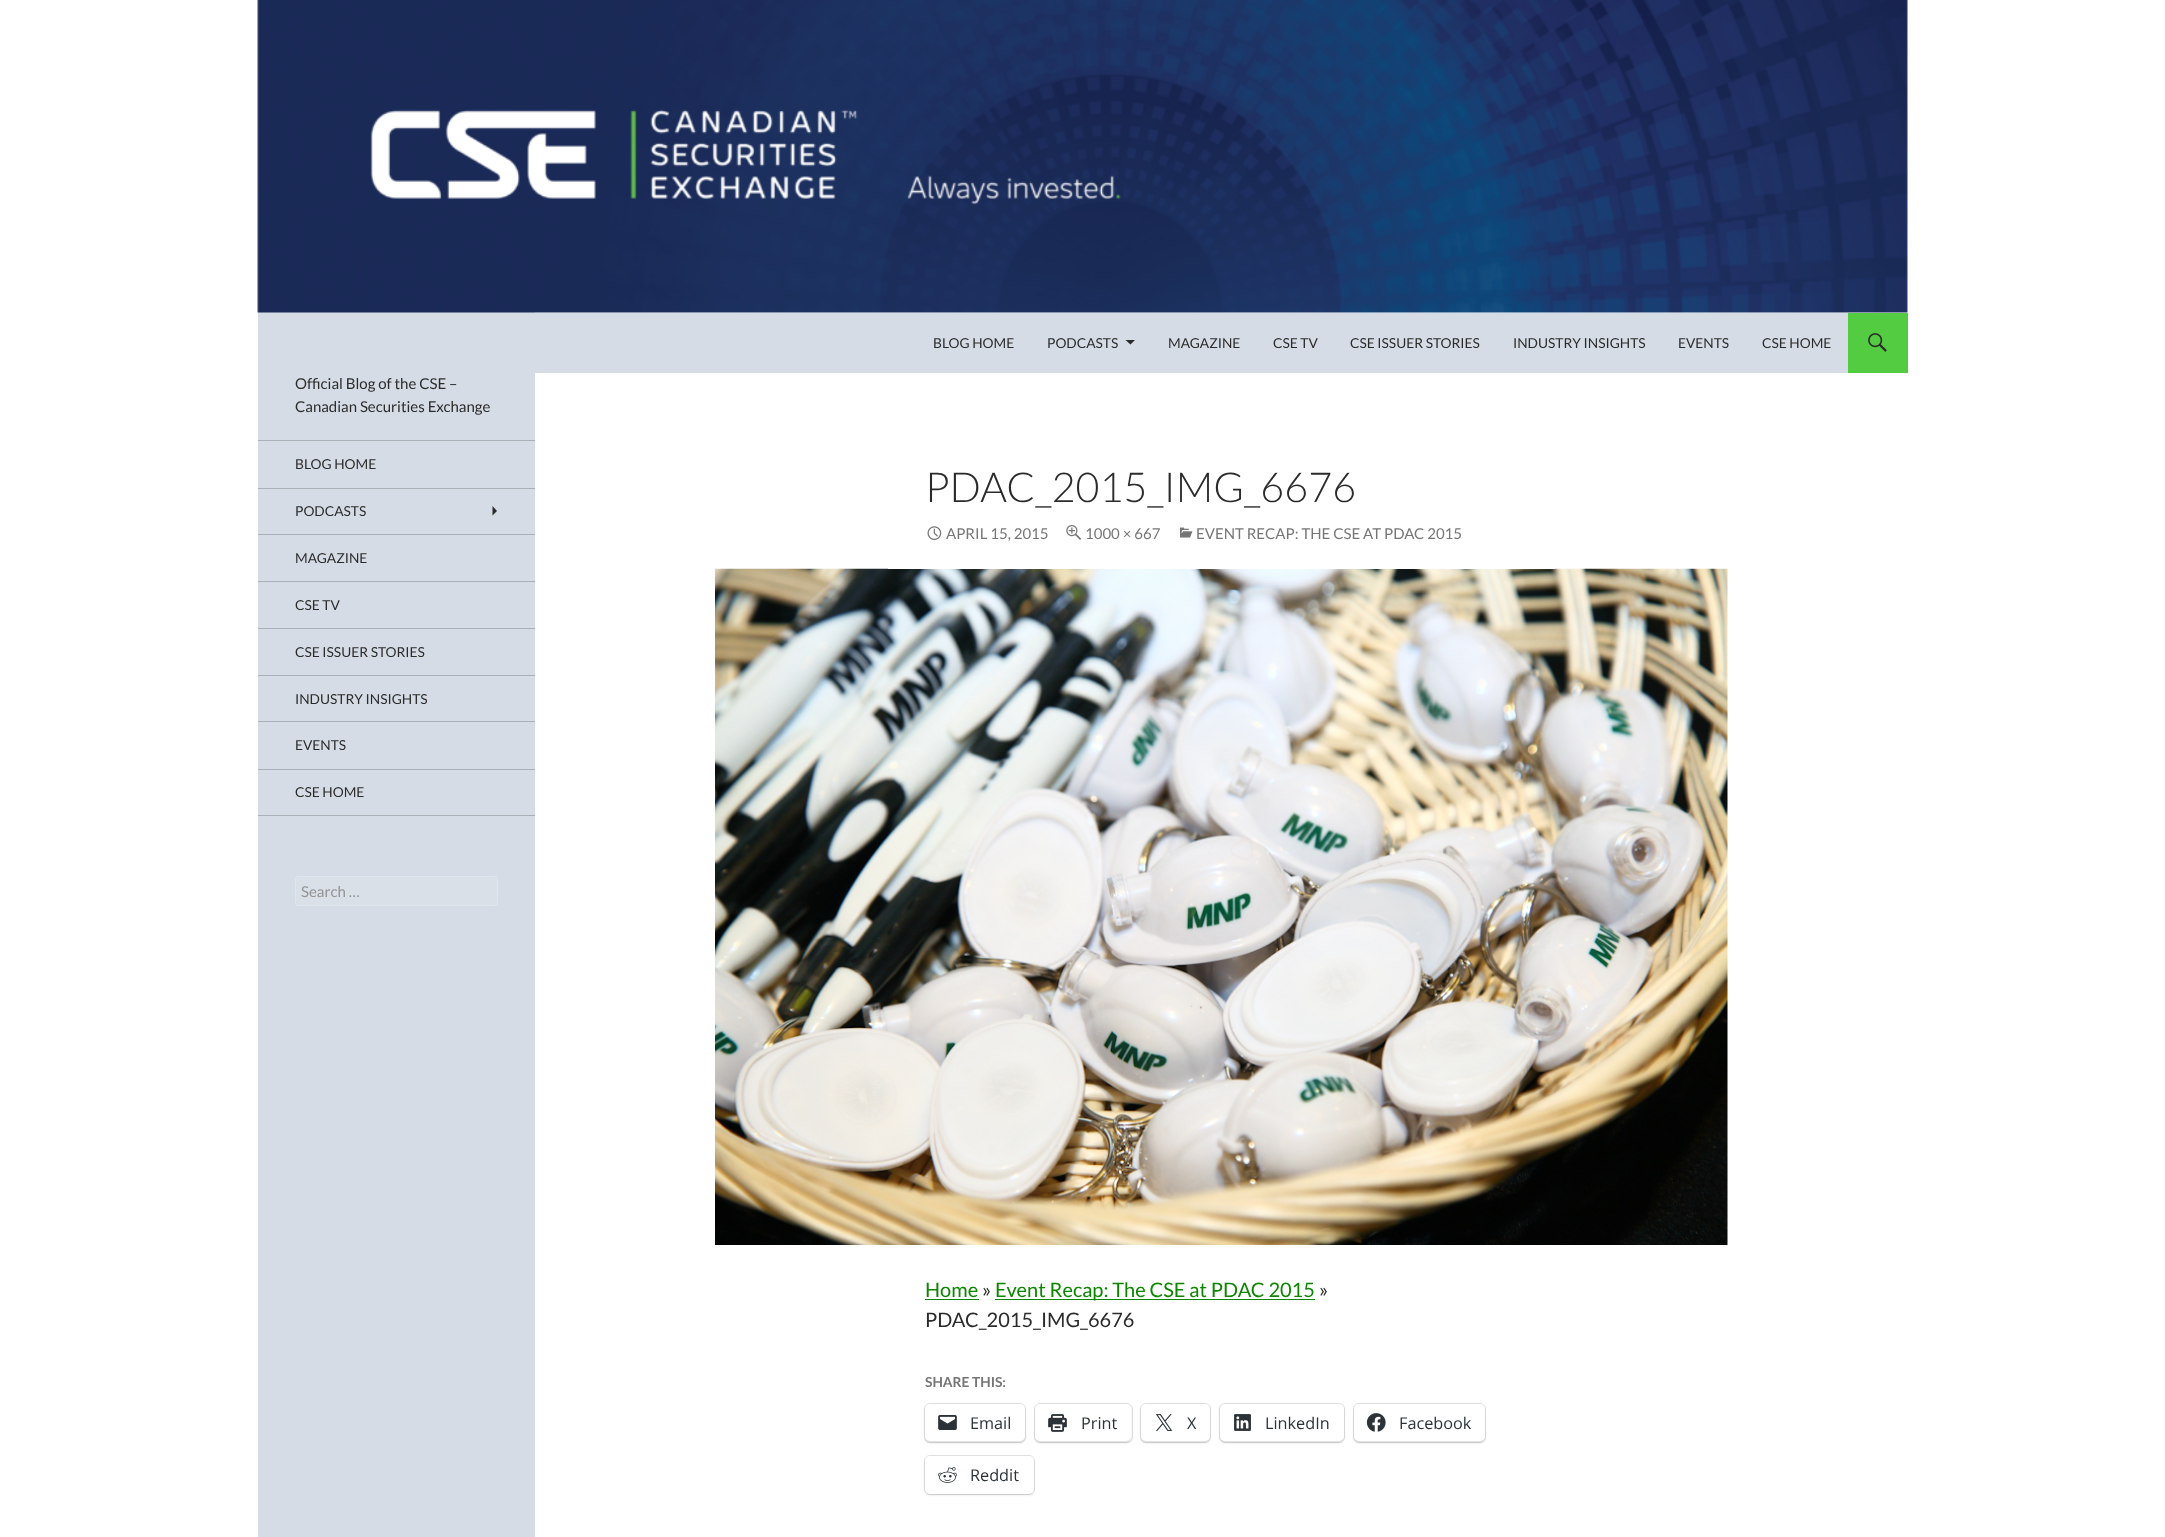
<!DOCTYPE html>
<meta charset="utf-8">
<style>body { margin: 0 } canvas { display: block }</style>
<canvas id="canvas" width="2165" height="1537"></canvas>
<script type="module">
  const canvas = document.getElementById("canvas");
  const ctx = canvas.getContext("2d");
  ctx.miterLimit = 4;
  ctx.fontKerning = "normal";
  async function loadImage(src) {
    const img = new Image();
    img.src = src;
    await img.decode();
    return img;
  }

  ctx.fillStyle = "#ffffff";
  ctx.fillRect(0, 0, 2165, 1537);
  ctx.fillStyle = "#d6dce5";
  ctx.fillRect(258, 312, 277, 1225);
  ctx.drawImage(await loadImage("img1.png"), 257, 0, 1651, 313);
  ctx.fillRect(535, 313, 1313, 60);
  ctx.font = "13.75px Lato";
  ctx.fillStyle = "#2b2b2b";
  ctx.fillText("BLOG HOME", 933, 348);
  ctx.fillText("PODCASTS", 1047, 348);
  ctx.beginPath();
  ctx.moveTo(1125.5, 340);
  ctx.lineTo(1135, 340);
  ctx.lineTo(1130.5, 344.5);
  ctx.closePath();
  ctx.fill();
  ctx.fillText("MAGAZINE", 1168, 348);
  ctx.fillText("CSE TV", 1273, 348);
  ctx.fillText("CSE ISSUER STORIES", 1350, 348);
  ctx.fillText("INDUSTRY INSIGHTS", 1513, 348);
  ctx.fillText("EVENTS", 1678, 348);
  ctx.fillText("CSE HOME", 1762, 348);
  ctx.fillStyle = "#53cc42";
  ctx.fillRect(1848, 313, 60, 60);
  ctx.drawImage(await loadImage("img2.png"), 1868, 333, 19, 19);
  ctx.font = "15px Lato";
  ctx.fillStyle = "#2b2b2b";
  ctx.fillText("Official Blog of the CSE –", 295, 389);
  ctx.fillText("Canadian Securities Exchange", 295, 412);
  ctx.fillStyle = "#abb0b7";
  ctx.fillRect(258, 815, 277, 1);
  ctx.fillRect(258, 440, 277, 1);
  ctx.font = "13.75px Lato";
  ctx.fillStyle = "#2b2b2b";
  ctx.fillText("BLOG HOME", 295, 469);
  ctx.fillStyle = "#abb0b7";
  ctx.fillRect(258, 488, 277, 1);
  ctx.fillStyle = "#2b2b2b";
  ctx.fillText("PODCASTS", 295, 516);
  ctx.beginPath();
  ctx.moveTo(492.5, 515.5);
  ctx.lineTo(492.5, 506);
  ctx.lineTo(497, 511);
  ctx.closePath();
  ctx.fill();
  ctx.fillStyle = "#abb0b7";
  ctx.fillRect(258, 534, 277, 1);
  ctx.fillStyle = "#2b2b2b";
  ctx.fillText("MAGAZINE", 295, 563);
  ctx.fillStyle = "#abb0b7";
  ctx.fillRect(258, 581, 277, 1);
  ctx.fillStyle = "#2b2b2b";
  ctx.fillText("CSE TV", 295, 610);
  ctx.fillStyle = "#abb0b7";
  ctx.fillRect(258, 628, 277, 1);
  ctx.fillStyle = "#2b2b2b";
  ctx.fillText("CSE ISSUER STORIES", 295, 657);
  ctx.fillStyle = "#abb0b7";
  ctx.fillRect(258, 675, 277, 1);
  ctx.fillStyle = "#2b2b2b";
  ctx.fillText("INDUSTRY INSIGHTS", 295, 704);
  ctx.fillStyle = "#abb0b7";
  ctx.fillRect(258, 721, 277, 1);
  ctx.fillStyle = "#2b2b2b";
  ctx.fillText("EVENTS", 295, 750);
  ctx.fillStyle = "#abb0b7";
  ctx.fillRect(258, 769, 277, 1);
  ctx.fillStyle = "#2b2b2b";
  ctx.fillText("CSE HOME", 295, 797);
  ctx.fillStyle = "#dae0e8";
  ctx.beginPath();
  ctx.roundRect(295.5, 876.5, 202, 29, 2);
  ctx.fill();
  ctx.strokeStyle = "#e1e6ed";
  ctx.stroke();
  ctx.font = "15px Lato";
  ctx.fillStyle = "#939393";
  ctx.fillText("Search …", 301, 897);
  ctx.drawImage(await loadImage("img6.png"), 715, 568, 1013, 677);
  ctx.fillStyle = "#ffffff";
  ctx.fillRect(888, 568, 667, 1);
  ctx.font = "300 41.25px Lato";
  ctx.fillStyle = "#2b2b2b";
  ctx.fillText("PDAC_2015_IMG_6676", 925, 502);
  ctx.drawImage(await loadImage("img3.png"), 927, 526, 15, 14);
  ctx.font = "15px Lato";
  ctx.fillStyle = "#767676";
  ctx.fillText("APRIL 15, 2015", 946, 539);
  ctx.drawImage(await loadImage("img4.png"), 1066, 525, 16, 15);
  ctx.fillText("1000 × 667", 1085, 539);
  ctx.drawImage(await loadImage("img5.png"), 1180, 527, 13, 11);
  ctx.fillText("EVENT RECAP: THE CSE AT PDAC 2015", 1196, 539);
  ctx.font = "20px Lato";
  ctx.fillStyle = "#0d8600";
  ctx.fillText("Home", 925, 1297);
  ctx.fillRect(925, 1299, 54, 1);
  ctx.fillStyle = "#2b2b2b";
  ctx.fillText("»", 982, 1297);
  ctx.fillStyle = "#0d8600";
  ctx.fillRect(995, 1299, 320, 1);
  ctx.fillText("Event Recap: The CSE at PDAC 2015", 995, 1297);
  ctx.fillStyle = "#2b2b2b";
  ctx.fillText("»", 1319, 1297);
  ctx.fillText("PDAC_2015_IMG_6676", 925, 1327);
  ctx.font = "bold 13.75px Lato";
  ctx.fillStyle = "#767676";
  ctx.fillText("SHARE THIS:", 925, 1387);
  ctx.beginPath();
  ctx.roundRect(924.5, 1403.5, 101, 39, 5.5);
  ctx.strokeStyle = "#e0e0e0";
  ctx.stroke();
  ctx.fillStyle = "rgba(0, 0, 0, 0.12)";
  ctx.filter = "blur(1px)";
  ctx.beginPath();
  ctx.roundRect(925, 1405, 100, 38, 5);
  ctx.fill();
  ctx.filter = "none";
  ctx.fillStyle = "#ffffff";
  ctx.beginPath();
  ctx.roundRect(925, 1404, 100, 37, 5);
  ctx.fill();
  ctx.drawImage(await loadImage("img7.png"), 938, 1415, 19, 15);
  ctx.font = "16.25px Open Sans";
  ctx.fillStyle = "#2c3338";
  ctx.fillText("Email", 970, 1429);
  ctx.beginPath();
  ctx.roundRect(1034.5, 1403.5, 98, 39, 5.5);
  ctx.stroke();
  ctx.fillStyle = "rgba(0, 0, 0, 0.12)";
  ctx.filter = "blur(1px)";
  ctx.beginPath();
  ctx.roundRect(1035, 1405, 96, 38, 5);
  ctx.fill();
  ctx.filter = "none";
  ctx.fillStyle = "#ffffff";
  ctx.beginPath();
  ctx.roundRect(1035, 1404, 96, 37, 5);
  ctx.fill();
  ctx.drawImage(await loadImage("img8.png"), 1048, 1414, 19, 18);
  ctx.fillStyle = "#2c3338";
  ctx.fillText("Print", 1081, 1429);
  ctx.beginPath();
  ctx.roundRect(1140.5, 1403.5, 70, 39, 5.5);
  ctx.stroke();
  ctx.fillStyle = "rgba(0, 0, 0, 0.12)";
  ctx.filter = "blur(1px)";
  ctx.beginPath();
  ctx.roundRect(1141, 1405, 69, 38, 5);
  ctx.fill();
  ctx.filter = "none";
  ctx.fillStyle = "#ffffff";
  ctx.beginPath();
  ctx.roundRect(1141, 1404, 69, 37, 5);
  ctx.fill();
  ctx.drawImage(await loadImage("img9.png"), 1155, 1414, 18, 17);
  ctx.fillStyle = "#2c3338";
  ctx.fillText("X", 1187, 1429);
  ctx.beginPath();
  ctx.roundRect(1219.5, 1403.5, 125, 39, 5.5);
  ctx.stroke();
  ctx.fillStyle = "rgba(0, 0, 0, 0.12)";
  ctx.filter = "blur(1px)";
  ctx.beginPath();
  ctx.roundRect(1220, 1405, 124, 38, 5);
  ctx.fill();
  ctx.filter = "none";
  ctx.fillStyle = "#ffffff";
  ctx.beginPath();
  ctx.roundRect(1220, 1404, 124, 37, 5);
  ctx.fill();
  ctx.drawImage(await loadImage("img10.png"), 1234, 1414, 17, 17);
  ctx.fillStyle = "#2c3338";
  ctx.fillText("LinkedIn", 1265, 1429);
  ctx.beginPath();
  ctx.roundRect(1353.5, 1403.5, 132, 39, 5.5);
  ctx.stroke();
  ctx.fillStyle = "rgba(0, 0, 0, 0.12)";
  ctx.filter = "blur(1px)";
  ctx.beginPath();
  ctx.roundRect(1354, 1405, 131, 38, 5);
  ctx.fill();
  ctx.filter = "none";
  ctx.fillStyle = "#ffffff";
  ctx.beginPath();
  ctx.roundRect(1354, 1404, 131, 37, 5);
  ctx.fill();
  ctx.drawImage(await loadImage("img11.png"), 1366, 1413, 20, 19);
  ctx.fillStyle = "#2c3338";
  ctx.fillText("Facebook", 1399, 1429);
  ctx.beginPath();
  ctx.roundRect(924.5, 1455.5, 110, 39, 5.5);
  ctx.stroke();
  ctx.fillStyle = "rgba(0, 0, 0, 0.12)";
  ctx.filter = "blur(1px)";
  ctx.beginPath();
  ctx.roundRect(925, 1458, 109, 37, 5);
  ctx.fill();
  ctx.filter = "none";
  ctx.fillStyle = "#ffffff";
  ctx.beginPath();
  ctx.roundRect(925, 1456, 109, 38, 5);
  ctx.fill();
  ctx.drawImage(await loadImage("img12.png"), 938, 1467, 19, 16);
  ctx.fillStyle = "#2c3338";
  ctx.fillText("Reddit", 970, 1481);
</script>
